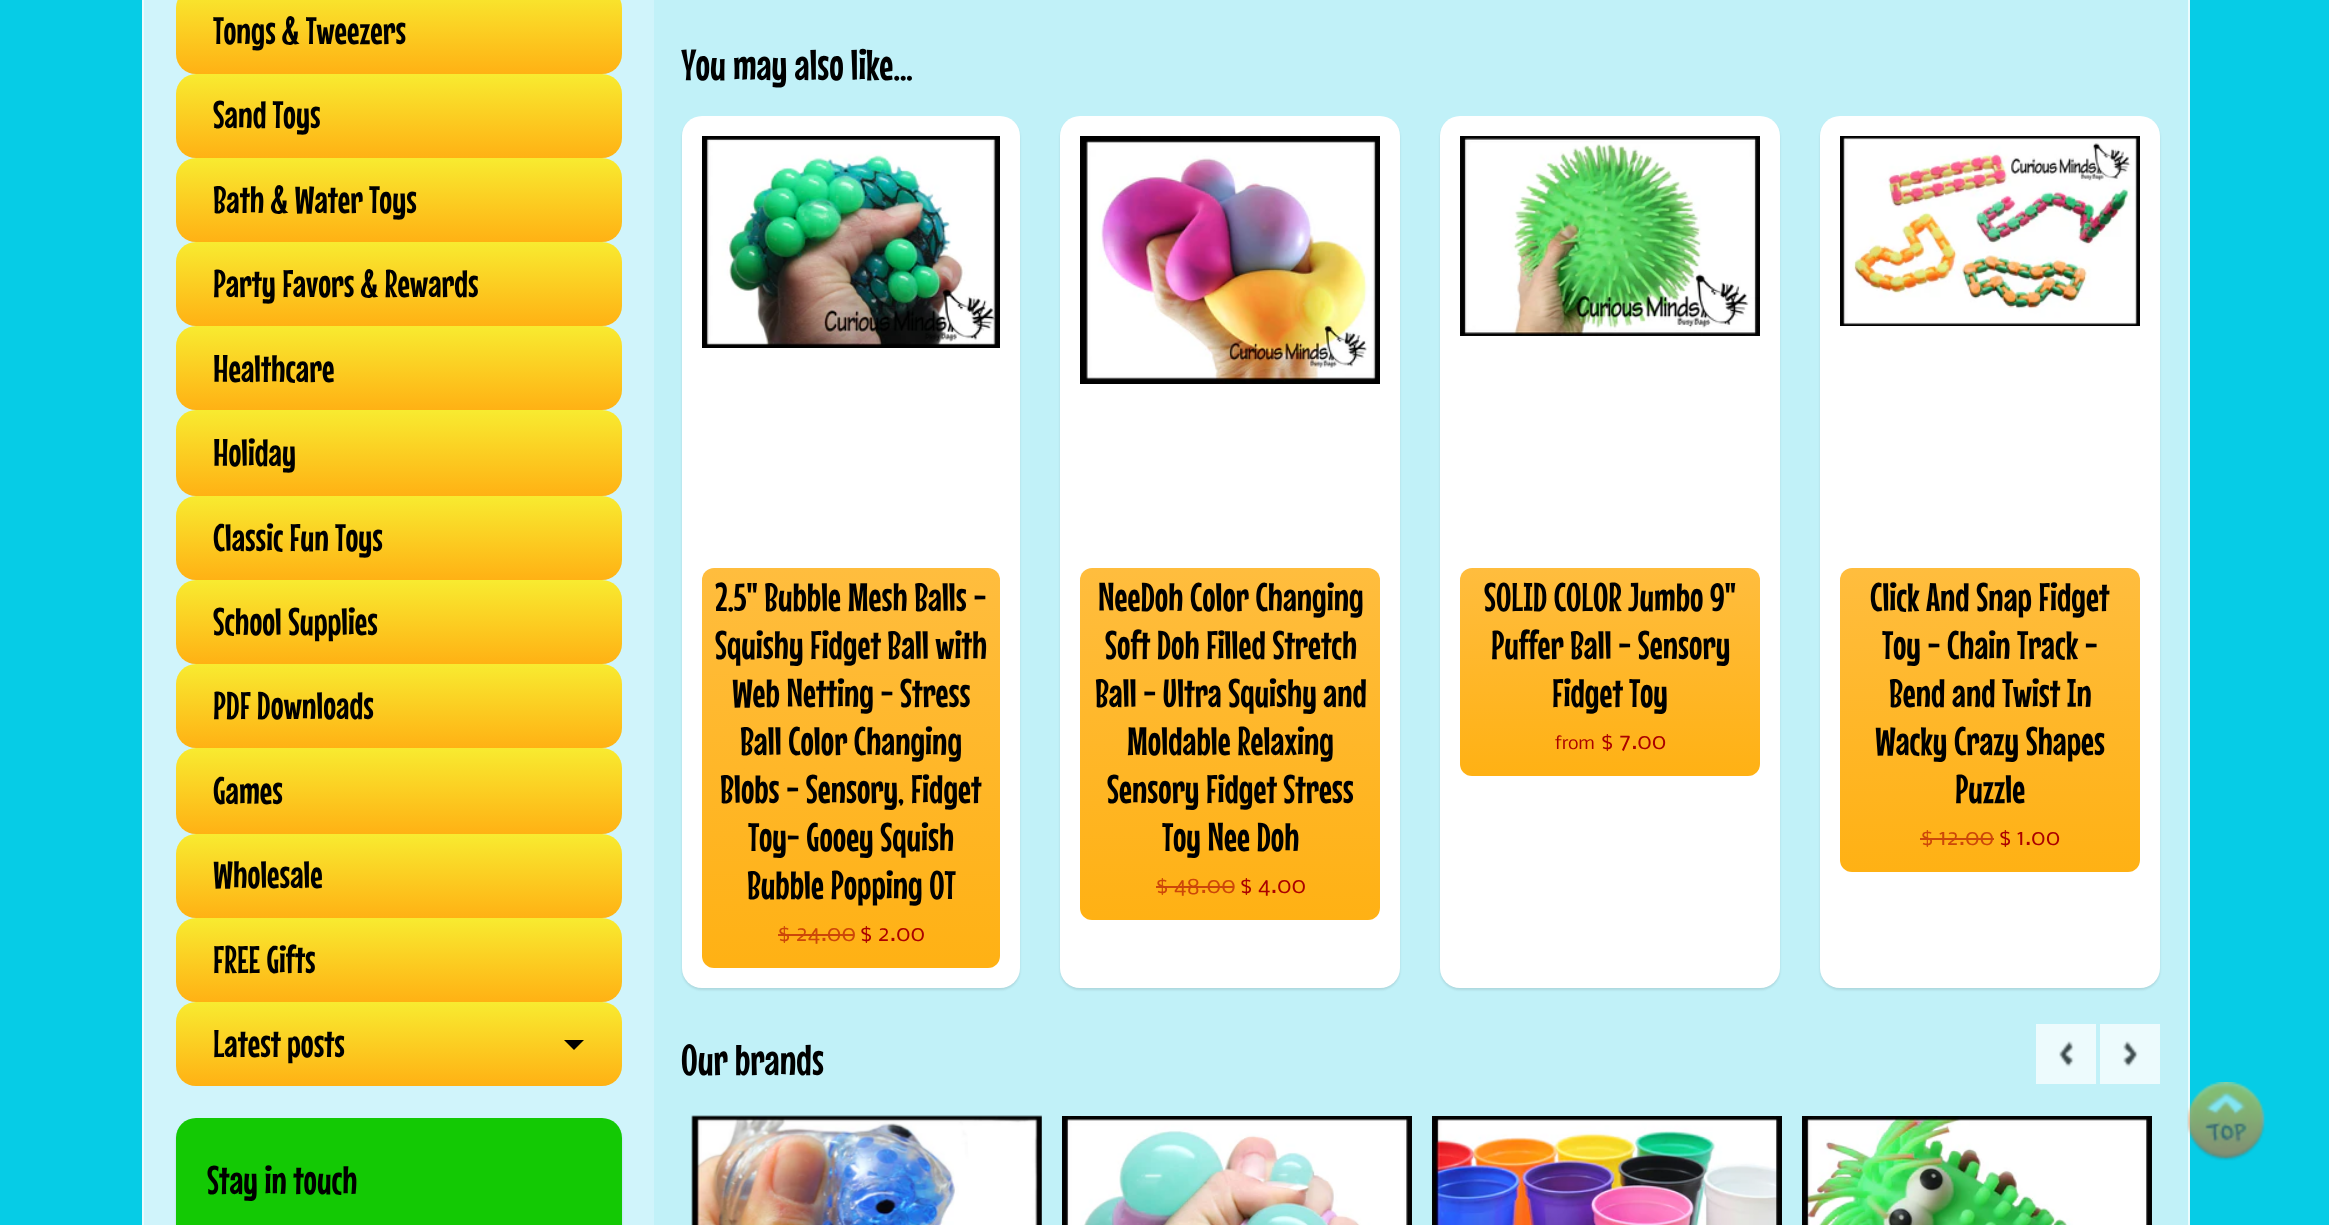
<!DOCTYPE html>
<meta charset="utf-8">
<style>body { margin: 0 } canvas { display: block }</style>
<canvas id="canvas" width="2329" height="1225"></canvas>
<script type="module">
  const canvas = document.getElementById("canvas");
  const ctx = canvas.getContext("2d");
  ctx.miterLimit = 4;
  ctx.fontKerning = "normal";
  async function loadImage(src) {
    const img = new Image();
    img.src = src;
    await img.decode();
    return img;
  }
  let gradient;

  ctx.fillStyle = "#06cce6";
  ctx.fillRect(0, 0, 2329, 1225);
  ctx.fillStyle = "#c1f1f8";
  ctx.fillRect(654, 0, 1534, 1225);
  ctx.strokeStyle = "#ecfbfd";
  ctx.lineWidth = 2;
  ctx.strokeRect(143, -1, 2046, 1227);
  ctx.fillStyle = "#d0f4fb";
  ctx.fillRect(144, 0, 510, 1225);
  gradient = ctx.createLinearGradient(399, -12, 399, 74);
  gradient.addColorStop(0, "#f8eb30");
  gradient.addColorStop(1, "#ffb114");
  ctx.fillStyle = gradient;
  ctx.beginPath();
  ctx.roundRect(176, -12, 446, 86, 20);
  ctx.fill();
  ctx.font = "38.5px Mouse Memoirs";
  ctx.fillStyle = "#000000";
  ctx.fillText("Tongs & Tweezers", 213, 44);
  gradient = ctx.createLinearGradient(399, 74, 399, 158);
  gradient.addColorStop(0, "#f8eb30");
  gradient.addColorStop(1, "#ffb114");
  ctx.fillStyle = gradient;
  ctx.beginPath();
  ctx.roundRect(176, 74, 446, 84, 20);
  ctx.fill();
  ctx.fillStyle = "#000000";
  ctx.fillText("Sand Toys", 213, 128);
  gradient = ctx.createLinearGradient(399, 158, 399, 242);
  gradient.addColorStop(0, "#f8eb30");
  gradient.addColorStop(1, "#ffb114");
  ctx.fillStyle = gradient;
  ctx.beginPath();
  ctx.roundRect(176, 158, 446, 84, 20);
  ctx.fill();
  ctx.fillStyle = "#000000";
  ctx.fillText("Bath & Water Toys", 213, 213);
  gradient = ctx.createLinearGradient(399, 242, 399, 326);
  gradient.addColorStop(0, "#f8eb30");
  gradient.addColorStop(1, "#ffb114");
  ctx.fillStyle = gradient;
  ctx.beginPath();
  ctx.roundRect(176, 242, 446, 84, 20);
  ctx.fill();
  ctx.fillStyle = "#000000";
  ctx.fillText("Party Favors & Rewards", 213, 297);
  gradient = ctx.createLinearGradient(399, 326, 399, 410);
  gradient.addColorStop(0, "#f8eb30");
  gradient.addColorStop(1, "#ffb114");
  ctx.fillStyle = gradient;
  ctx.beginPath();
  ctx.roundRect(176, 326, 446, 84, 20);
  ctx.fill();
  ctx.fillStyle = "#000000";
  ctx.fillText("Healthcare", 213, 382);
  gradient = ctx.createLinearGradient(399, 410, 399, 496);
  gradient.addColorStop(0, "#f8eb30");
  gradient.addColorStop(1, "#ffb114");
  ctx.fillStyle = gradient;
  ctx.beginPath();
  ctx.roundRect(176, 410, 446, 86, 20);
  ctx.fill();
  ctx.fillStyle = "#000000";
  ctx.fillText("Holiday", 213, 466);
  gradient = ctx.createLinearGradient(399, 496, 399, 580);
  gradient.addColorStop(0, "#f8eb30");
  gradient.addColorStop(1, "#ffb114");
  ctx.fillStyle = gradient;
  ctx.beginPath();
  ctx.roundRect(176, 496, 446, 84, 20);
  ctx.fill();
  ctx.fillStyle = "#000000";
  ctx.fillText("Classic Fun Toys", 213, 551);
  gradient = ctx.createLinearGradient(399, 580, 399, 664);
  gradient.addColorStop(0, "#f8eb30");
  gradient.addColorStop(1, "#ffb114");
  ctx.fillStyle = gradient;
  ctx.beginPath();
  ctx.roundRect(176, 580, 446, 84, 20);
  ctx.fill();
  ctx.fillStyle = "#000000";
  ctx.fillText("School Supplies", 213, 635);
  gradient = ctx.createLinearGradient(399, 664, 399, 748);
  gradient.addColorStop(0, "#f8eb30");
  gradient.addColorStop(1, "#ffb114");
  ctx.fillStyle = gradient;
  ctx.beginPath();
  ctx.roundRect(176, 664, 446, 84, 20);
  ctx.fill();
  ctx.fillStyle = "#000000";
  ctx.fillText("PDF Downloads", 213, 719);
  gradient = ctx.createLinearGradient(399, 748, 399, 834);
  gradient.addColorStop(0, "#f8eb30");
  gradient.addColorStop(1, "#ffb114");
  ctx.fillStyle = gradient;
  ctx.beginPath();
  ctx.roundRect(176, 748, 446, 86, 20);
  ctx.fill();
  ctx.fillStyle = "#000000";
  ctx.fillText("Games", 213, 804);
  gradient = ctx.createLinearGradient(399, 834, 399, 918);
  gradient.addColorStop(0, "#f8eb30");
  gradient.addColorStop(1, "#ffb114");
  ctx.fillStyle = gradient;
  ctx.beginPath();
  ctx.roundRect(176, 834, 446, 84, 20);
  ctx.fill();
  ctx.fillStyle = "#000000";
  ctx.fillText("Wholesale", 213, 888);
  gradient = ctx.createLinearGradient(399, 918, 399, 1002);
  gradient.addColorStop(0, "#f8eb30");
  gradient.addColorStop(1, "#ffb114");
  ctx.fillStyle = gradient;
  ctx.beginPath();
  ctx.roundRect(176, 918, 446, 84, 20);
  ctx.fill();
  ctx.fillStyle = "#000000";
  ctx.fillText("FREE Gifts", 213, 973);
  gradient = ctx.createLinearGradient(399, 1002, 399, 1086);
  gradient.addColorStop(0, "#f8eb30");
  gradient.addColorStop(1, "#ffb114");
  ctx.fillStyle = gradient;
  ctx.beginPath();
  ctx.roundRect(176, 1002, 446, 84, 20);
  ctx.fill();
  ctx.fillStyle = "#000000";
  ctx.fillText("Latest posts", 213, 1057);
  ctx.beginPath();
  ctx.moveTo(564, 1040);
  ctx.lineTo(584, 1040);
  ctx.lineTo(574, 1050);
  ctx.closePath();
  ctx.fill();
  ctx.fillStyle = "rgba(0, 0, 0, 0.1)";
  ctx.filter = "blur(1px)";
  ctx.beginPath();
  ctx.roundRect(176, 1120, 446, 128, 20);
  ctx.fill();
  ctx.filter = "none";
  ctx.fillStyle = "#13c904";
  ctx.beginPath();
  ctx.roundRect(176, 1118, 446, 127, 20);
  ctx.fill();
  ctx.font = "40px Mouse Memoirs";
  ctx.fillStyle = "#000000";
  ctx.fillText("Stay in touch", 207, 1194);
  ctx.font = "43.5px Mouse Memoirs";
  ctx.fillText("You may also like...", 681, 80);
  ctx.fillStyle = "rgba(0, 0, 0, 0.1)";
  ctx.filter = "blur(1px)";
  ctx.beginPath();
  ctx.roundRect(682, 118, 338, 872, 20);
  ctx.fill();
  ctx.filter = "none";
  ctx.fillStyle = "#ffffff";
  ctx.beginPath();
  ctx.roundRect(682, 116, 338, 872, 20);
  ctx.fill();
  ctx.drawImage(await loadImage("img1.png"), 702, 136, 298, 212);
  gradient = ctx.createLinearGradient(851, 568, 851, 968);
  gradient.addColorStop(0, "#ffbd3e");
  gradient.addColorStop(1, "#ffb114");
  ctx.fillStyle = gradient;
  ctx.beginPath();
  ctx.roundRect(702, 568, 298, 400, 12);
  ctx.fill();
  ctx.font = "40px Mouse Memoirs";
  ctx.fillStyle = "#000000";
  ctx.fillText("2.5\" Bubble Mesh Balls -", 715, 611);
  ctx.fillText("Squishy Fidget Ball with", 715, 659);
  ctx.fillText("Web Netting - Stress", 732, 707);
  ctx.fillText("Ball Color Changing", 740, 755);
  ctx.fillText("Blobs - Sensory, Fidget", 720, 803);
  ctx.fillText("Toy- Gooey Squish", 748, 851);
  ctx.fillText("Bubble Popping OT", 747, 899);
  ctx.font = "22px Nobile";
  ctx.fillStyle = "#cc4709";
  ctx.fillText("$ 24.00", 778, 941);
  ctx.fillRect(778, 934, 76, 2);
  ctx.fillStyle = "#aa0000";
  ctx.fillText("$ 2.00", 860, 941);
  ctx.fillStyle = "rgba(0, 0, 0, 0.1)";
  ctx.filter = "blur(1px)";
  ctx.beginPath();
  ctx.roundRect(1060, 118, 340, 872, 20);
  ctx.fill();
  ctx.filter = "none";
  ctx.fillStyle = "#ffffff";
  ctx.beginPath();
  ctx.roundRect(1060, 116, 340, 872, 20);
  ctx.fill();
  ctx.drawImage(await loadImage("img2.png"), 1080, 136, 300, 248);
  gradient = ctx.createLinearGradient(1230, 568, 1230, 920);
  gradient.addColorStop(0, "#ffbd3e");
  gradient.addColorStop(1, "#ffb114");
  ctx.fillStyle = gradient;
  ctx.beginPath();
  ctx.roundRect(1080, 568, 300, 352, 12);
  ctx.fill();
  ctx.font = "40px Mouse Memoirs";
  ctx.fillStyle = "#000000";
  ctx.fillText("NeeDoh Color Changing", 1098, 611);
  ctx.fillText("Soft Doh Filled Stretch", 1105, 659);
  ctx.fillText("Ball - Ultra Squishy and", 1095, 707);
  ctx.fillText("Moldable Relaxing", 1127, 755);
  ctx.fillText("Sensory Fidget Stress", 1107, 803);
  ctx.fillText("Toy Nee Doh", 1162, 851);
  ctx.font = "22px Nobile";
  ctx.fillStyle = "#cc4709";
  ctx.fillText("$ 48.00", 1156, 893);
  ctx.fillStyle = "#cc470a";
  ctx.fillRect(1156, 886, 78, 2);
  ctx.fillStyle = "#aa0000";
  ctx.fillText("$ 4.00", 1240, 893);
  ctx.fillStyle = "rgba(0, 0, 0, 0.1)";
  ctx.filter = "blur(1px)";
  ctx.beginPath();
  ctx.roundRect(1440, 118, 340, 872, 20);
  ctx.fill();
  ctx.filter = "none";
  ctx.fillStyle = "#ffffff";
  ctx.beginPath();
  ctx.roundRect(1440, 116, 340, 872, 20);
  ctx.fill();
  ctx.drawImage(await loadImage("img3.png"), 1460, 136, 300, 200);
  gradient = ctx.createLinearGradient(1610, 568, 1610, 776);
  gradient.addColorStop(0, "#ffbd3e");
  gradient.addColorStop(1, "#ffb114");
  ctx.fillStyle = gradient;
  ctx.beginPath();
  ctx.roundRect(1460, 568, 300, 208, 12);
  ctx.fill();
  ctx.font = "40px Mouse Memoirs";
  ctx.fillStyle = "#000000";
  ctx.fillText("SOLID COLOR Jumbo 9\"", 1484, 611);
  ctx.fillText("Puffer Ball - Sensory", 1491, 659);
  ctx.fillText("Fidget Toy", 1552, 707);
  ctx.font = "17px Nobile";
  ctx.fillStyle = "#aa0000";
  ctx.fillText("from", 1555, 749);
  ctx.font = "22px Nobile";
  ctx.fillText("$ 7.00", 1601, 749);
  ctx.fillStyle = "rgba(0, 0, 0, 0.1)";
  ctx.filter = "blur(1px)";
  ctx.beginPath();
  ctx.roundRect(1820, 118, 340, 872, 20);
  ctx.fill();
  ctx.filter = "none";
  ctx.fillStyle = "#ffffff";
  ctx.beginPath();
  ctx.roundRect(1820, 116, 340, 872, 20);
  ctx.fill();
  ctx.drawImage(await loadImage("img4.png"), 1840, 136, 300, 190);
  gradient = ctx.createLinearGradient(1990, 568, 1990, 872);
  gradient.addColorStop(0, "#ffbd3e");
  gradient.addColorStop(1, "#ffb114");
  ctx.fillStyle = gradient;
  ctx.beginPath();
  ctx.roundRect(1840, 568, 300, 304, 12);
  ctx.fill();
  ctx.font = "40px Mouse Memoirs";
  ctx.fillStyle = "#000000";
  ctx.fillText("Click And Snap Fidget", 1870, 611);
  ctx.fillText("Toy - Chain Track -", 1882, 659);
  ctx.fillText("Bend and Twist In", 1889, 707);
  ctx.fillText("Wacky Crazy Shapes", 1875, 755);
  ctx.fillText("Puzzle", 1955, 803);
  ctx.font = "22px Nobile";
  ctx.fillStyle = "#cc4709";
  ctx.fillText("$ 12.00", 1921, 845);
  ctx.fillStyle = "#cc470a";
  ctx.fillRect(1920, 838, 74, 2);
  ctx.fillStyle = "#aa0000";
  ctx.fillText("$ 1.00", 1999, 845);
  ctx.drawImage(await loadImage("img5.png"), 2036, 1024, 60, 60);
  ctx.drawImage(await loadImage("img6.png"), 2100, 1024, 60, 60);
  ctx.drawImage(await loadImage("img7.png"), 691, 1115, 351, 110);
  ctx.drawImage(await loadImage("img8.png"), 1062, 1116, 350, 109);
  ctx.drawImage(await loadImage("img9.png"), 1432, 1116, 350, 109);
  ctx.drawImage(await loadImage("img10.png"), 1802, 1116, 350, 109);
  ctx.font = "43.5px Mouse Memoirs";
  ctx.fillStyle = "#000000";
  ctx.fillText("Our brands", 681, 1075);
  ctx.drawImage(await loadImage("img11.png"), 2187, 1082, 78, 79);
</script>
